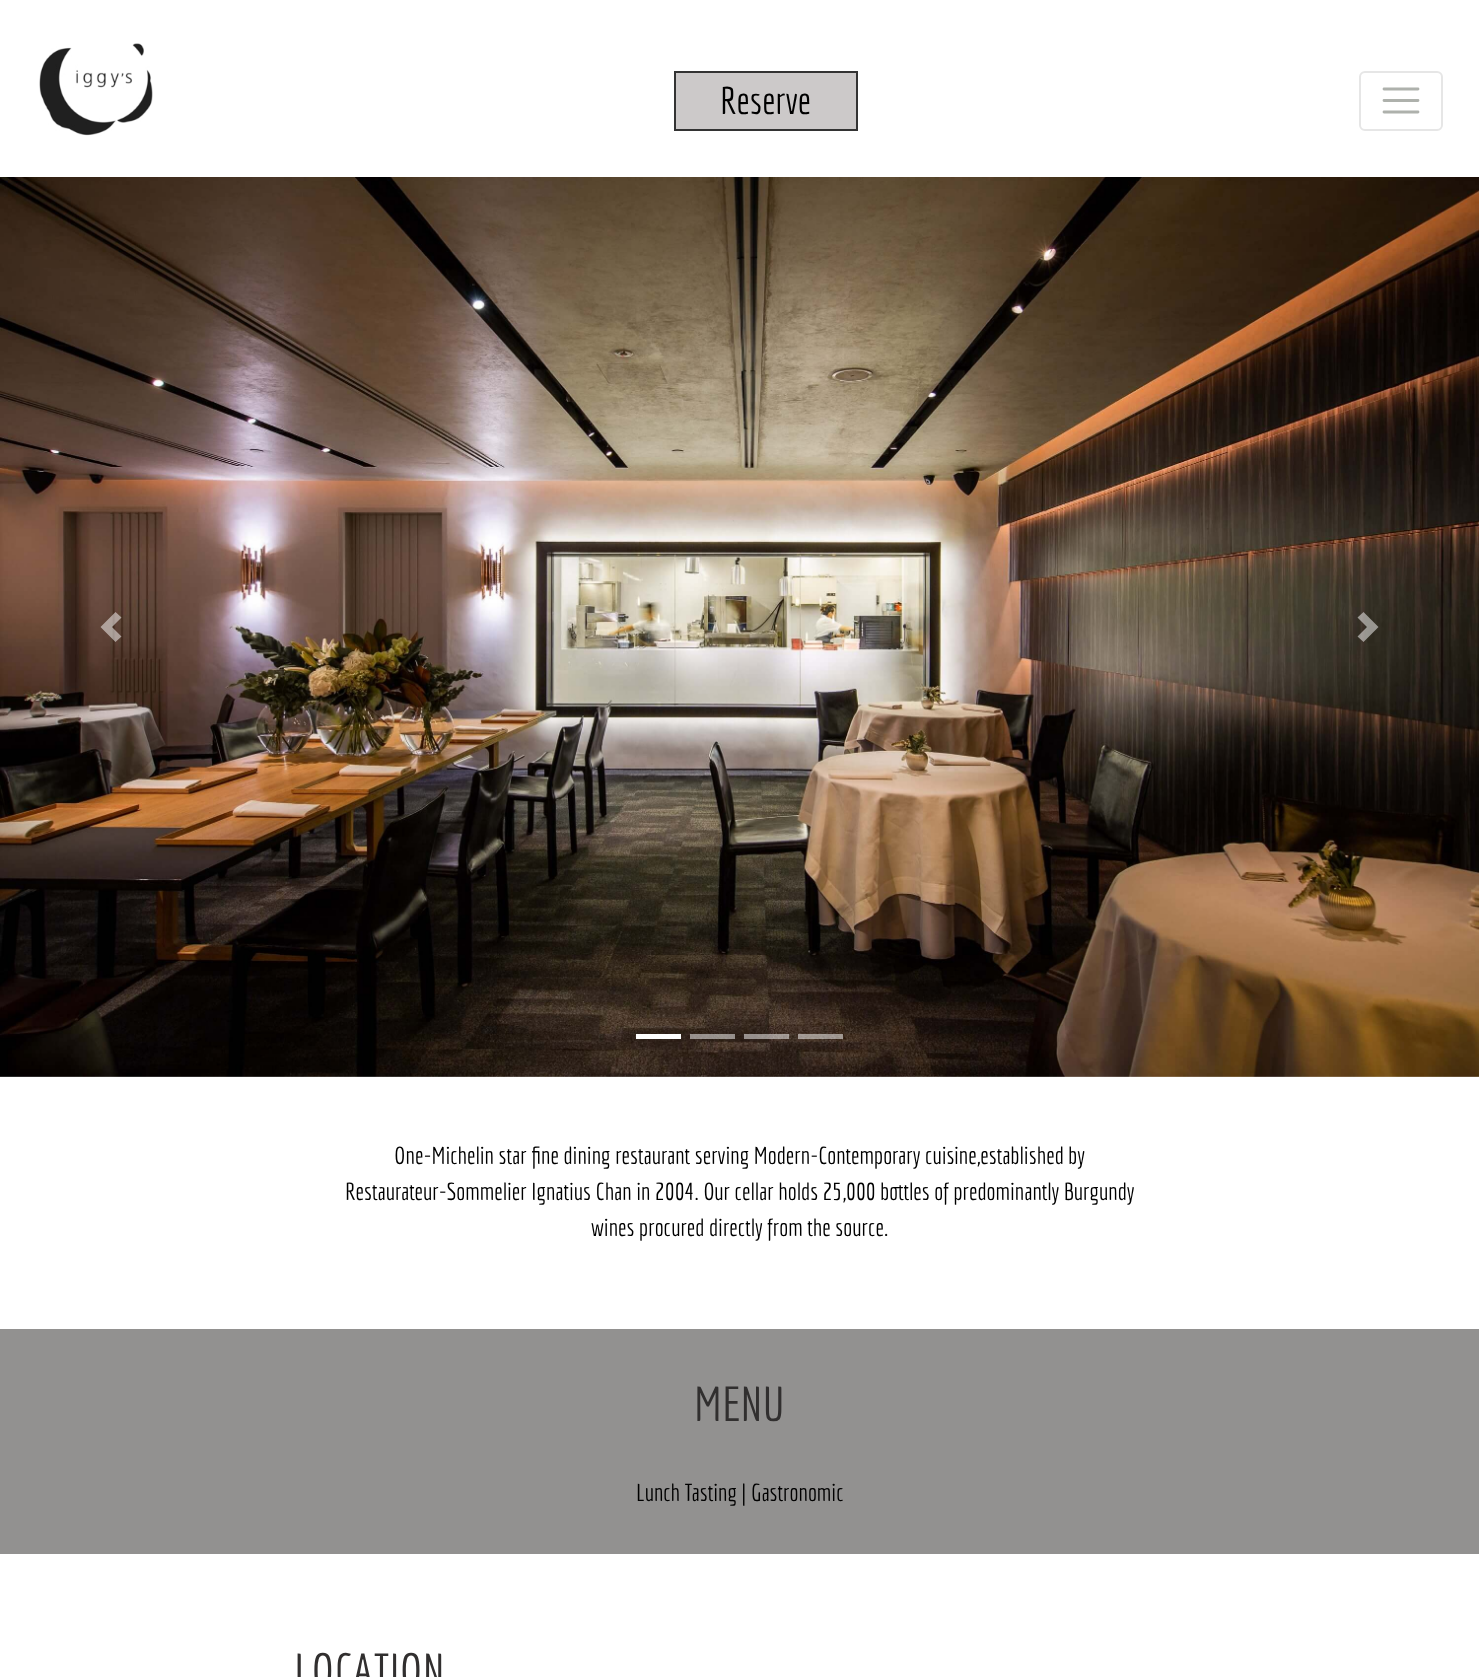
<!DOCTYPE html>
<meta charset="utf-8">
<style>body { margin: 0 } canvas { display: block }</style>
<canvas id="canvas" width="1479" height="1677"></canvas>
<script type="module">
  const canvas = document.getElementById("canvas");
  const ctx = canvas.getContext("2d");
  ctx.miterLimit = 4;
  ctx.fontKerning = "normal";
  async function loadImage(src) {
    const img = new Image();
    img.src = src;
    await img.decode();
    return img;
  }

  ctx.fillStyle = "#ffffff";
  ctx.fillRect(0, 0, 1479, 1677);
  ctx.drawImage(await loadImage("img1.png"), 39, 43, 114, 93);
  ctx.fillStyle = "#ccc9c9";
  ctx.beginPath();
  ctx.rect(675, 72, 182, 58);
  ctx.fill();
  ctx.strokeStyle = "#333333";
  ctx.lineWidth = 2;
  ctx.stroke();
  ctx.font = "37.5px Economica";
  ctx.fillStyle = "#000000";
  ctx.fillText("Reserve", 720, 114);
  ctx.beginPath();
  ctx.roundRect(1360, 72, 82, 58, 5);
  ctx.strokeStyle = "#e6e6e6";
  ctx.stroke();
  ctx.beginPath();
  ctx.moveTo(1384, 89);
  ctx.lineTo(1418, 89);
  ctx.moveTo(1384, 100.5);
  ctx.lineTo(1418, 100.5);
  ctx.moveTo(1384, 112);
  ctx.lineTo(1418, 112);
  ctx.strokeStyle = "#aeb1ac";
  ctx.lineWidth = 2.8;
  ctx.lineCap = "round";
  ctx.stroke();
  ctx.drawImage(await loadImage("img2.png"), 0, 177, 1479, 900);
  ctx.fillStyle = "rgba(255, 255, 255, 0.5)";
  ctx.beginPath();
  ctx.moveTo(115.5, 612);
  ctx.lineTo(100.5, 627);
  ctx.lineTo(115.5, 642);
  ctx.lineTo(121.5, 636.5);
  ctx.lineTo(112, 627);
  ctx.lineTo(121.5, 617.5);
  ctx.closePath();
  ctx.fill();
  ctx.beginPath();
  ctx.moveTo(1363.5, 612);
  ctx.lineTo(1357.5, 617.5);
  ctx.lineTo(1367, 627);
  ctx.lineTo(1357.5, 636.5);
  ctx.lineTo(1363.5, 642);
  ctx.lineTo(1378.5, 627);
  ctx.closePath();
  ctx.fill();
  ctx.fillStyle = "#ffffff";
  ctx.fillRect(636, 1034, 45, 5);
  ctx.fillStyle = "rgba(255, 255, 255, 0.5)";
  ctx.fillRect(690, 1034, 45, 5);
  ctx.fillRect(744, 1034, 45, 5);
  ctx.fillRect(798, 1034, 45, 5);
  ctx.font = "24px Economica";
  ctx.fillStyle = "#000000";
  ctx.fillText("One-Michelin star fine dining restaurant serving Modern-Contemporary cuisine,established by", 394, 1164);
  ctx.fillText("Restaurateur-Sommelier Ignatius Chan in 2004. Our cellar holds 25,000 bottles of predominantly Burgundy", 345, 1200);
  ctx.fillText("wines procured directly from the source.", 591, 1236);
  ctx.fillStyle = "#929190";
  ctx.fillRect(0, 1329, 1479, 225);
  ctx.font = "48px Economica";
  ctx.fillStyle = "#312f2f";
  ctx.fillText("MENU", 694, 1421);
  ctx.font = "24px Economica";
  ctx.fillStyle = "#000000";
  ctx.fillText("Lunch Tasting | Gastronomic", 636, 1501);
  ctx.font = "48px Economica";
  ctx.fillStyle = "#312f2f";
  ctx.fillText("LOCATION", 294, 1688);
</script>
